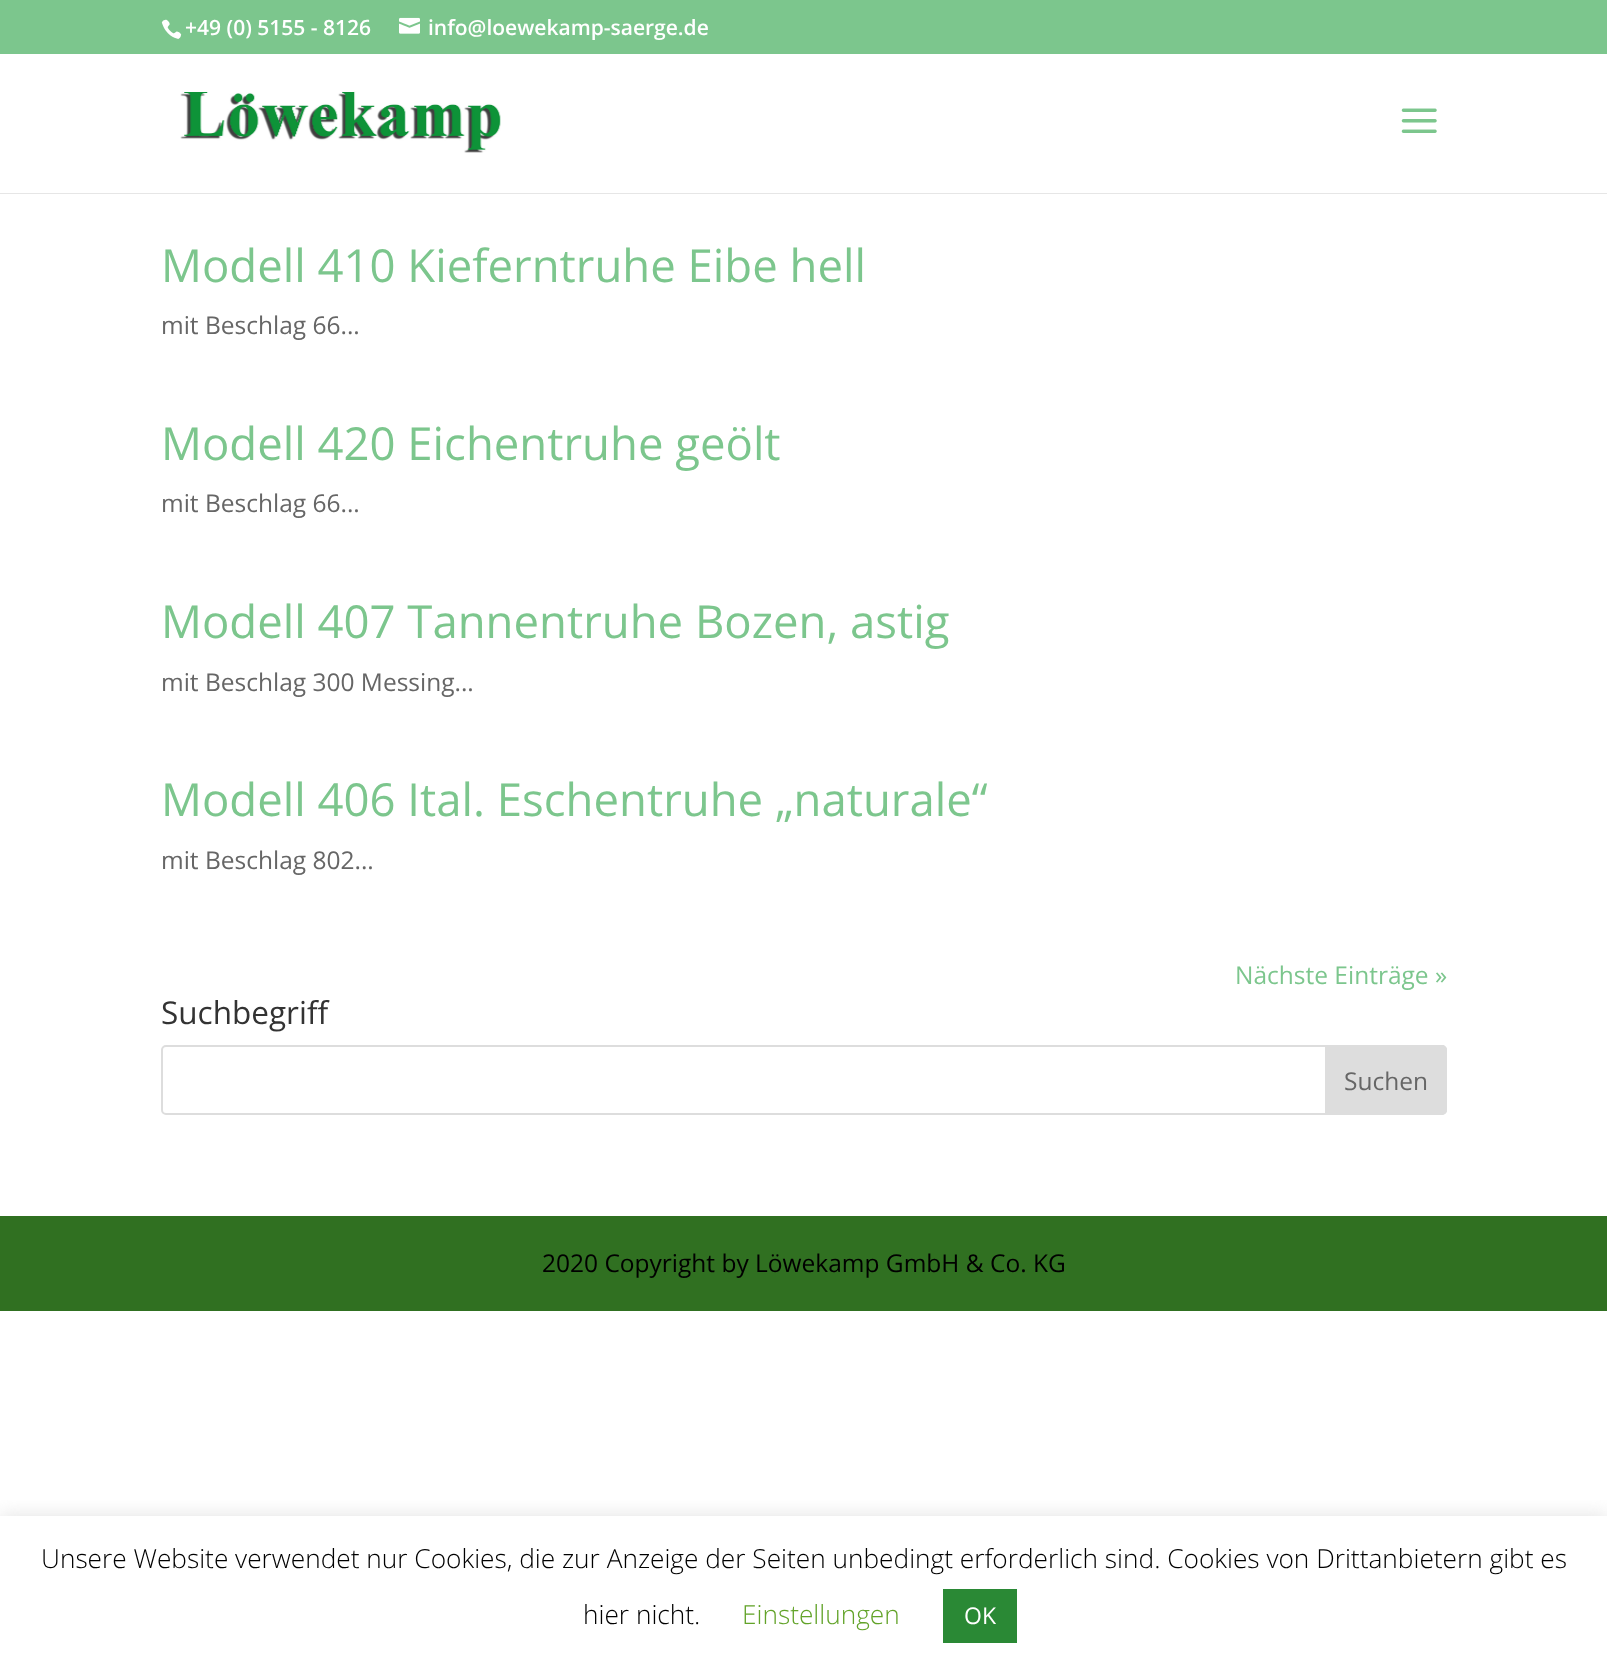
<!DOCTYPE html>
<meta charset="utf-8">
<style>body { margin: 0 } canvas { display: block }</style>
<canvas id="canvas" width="1607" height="1673"></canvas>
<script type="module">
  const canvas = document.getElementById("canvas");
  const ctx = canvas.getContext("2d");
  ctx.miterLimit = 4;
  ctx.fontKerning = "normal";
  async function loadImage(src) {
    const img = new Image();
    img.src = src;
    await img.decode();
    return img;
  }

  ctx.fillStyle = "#ffffff";
  ctx.fillRect(0, 0, 1607, 1673);
  ctx.fillStyle = "#7cc68d";
  ctx.fillRect(0, 0, 1607, 54);
  ctx.drawImage(await loadImage("img1.png"), 161, 19, 21, 20);
  ctx.font = "600 21px Open Sans";
  ctx.fillStyle = "#ffffff";
  ctx.fillText("+49 (0) 5155 - 8126", 185, 35);
  ctx.drawImage(await loadImage("img2.png"), 399, 17, 21, 17);
  ctx.fillText("info@loewekamp-saerge.de", 428, 35);
  ctx.fillStyle = "#e6e6e6";
  ctx.fillRect(0, 193, 1607, 1);
  ctx.drawImage(await loadImage("img3.png"), 180, 91, 321, 62);
  ctx.drawImage(await loadImage("img4.png"), 1401, 108, 36, 25);
  ctx.font = "45.5px Open Sans";
  ctx.fillStyle = "#7cc68d";
  ctx.fillText("Modell 410 Kieferntruhe Eibe hell", 161, 282);
  ctx.font = "24.5px Open Sans";
  ctx.fillStyle = "#666666";
  ctx.fillText("mit Beschlag 66...", 161, 334);
  ctx.font = "45.5px Open Sans";
  ctx.fillStyle = "#7cc68d";
  ctx.fillText("Modell 420 Eichentruhe geölt", 161, 460);
  ctx.font = "24.5px Open Sans";
  ctx.fillStyle = "#666666";
  ctx.fillText("mit Beschlag 66...", 161, 512);
  ctx.font = "45.5px Open Sans";
  ctx.fillStyle = "#7cc68d";
  ctx.fillText("Modell 407 Tannentruhe Bozen, astig", 161, 638);
  ctx.font = "24.5px Open Sans";
  ctx.fillStyle = "#666666";
  ctx.fillText("mit Beschlag 300 Messing...", 161, 691);
  ctx.font = "45.5px Open Sans";
  ctx.fillStyle = "#7cc68d";
  ctx.fillText("Modell 406 Ital. Eschentruhe „naturale“", 161, 816);
  ctx.font = "24.5px Open Sans";
  ctx.fillStyle = "#666666";
  ctx.fillText("mit Beschlag 802...", 161, 869);
  ctx.fillStyle = "#7cc68d";
  ctx.fillText("Nächste Einträge »", 1235, 984);
  ctx.font = "31.5px Open Sans";
  ctx.fillStyle = "#333333";
  ctx.fillText("Suchbegriff", 161, 1024);
  ctx.beginPath();
  ctx.roundRect(162, 1046, 1284, 68, 4);
  ctx.strokeStyle = "#dddddd";
  ctx.lineWidth = 2;
  ctx.stroke();
  ctx.fillStyle = "#dddddd";
  ctx.beginPath();
  ctx.roundRect(1326, 1046, 120, 68, [0, 4, 4, 0]);
  ctx.fill();
  ctx.stroke();
  ctx.font = "24.5px Open Sans";
  ctx.fillStyle = "#666666";
  ctx.fillText("Suchen", 1344, 1090);
  ctx.fillStyle = "#307021";
  ctx.fillRect(0, 1216, 1607, 95);
  ctx.fillStyle = "#000000";
  ctx.fillText("2020 Copyright by Löwekamp GmbH & Co. KG", 542, 1272);
  ctx.save();
  ctx.beginPath();
  ctx.rect(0, 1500, 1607, 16);
  ctx.clip();
  ctx.fillStyle = "rgba(172, 171, 171, 0.3)";
  ctx.filter = "blur(9px)";
  ctx.beginPath();
  ctx.rect(0, 1514, 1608, 157);
  ctx.fill();
  ctx.filter = "none";
  ctx.restore();
  ctx.font = "300 26.25px Open Sans";
  ctx.fillText("Unsere Website verwendet nur Cookies, die zur Anzeige der Seiten unbedingt erforderlich sind. Cookies von Drittanbietern gibt es", 41, 1568);
  ctx.fillText("hier nicht.", 583, 1624);
  ctx.fillStyle = "#62a329";
  ctx.fillText("Einstellungen", 742, 1624);
  ctx.fillStyle = "#2a8935";
  ctx.fillRect(943, 1589, 74, 54);
  ctx.font = "23px Open Sans";
  ctx.fillStyle = "#ffffff";
  ctx.fillText("OK", 964, 1624);
</script>
